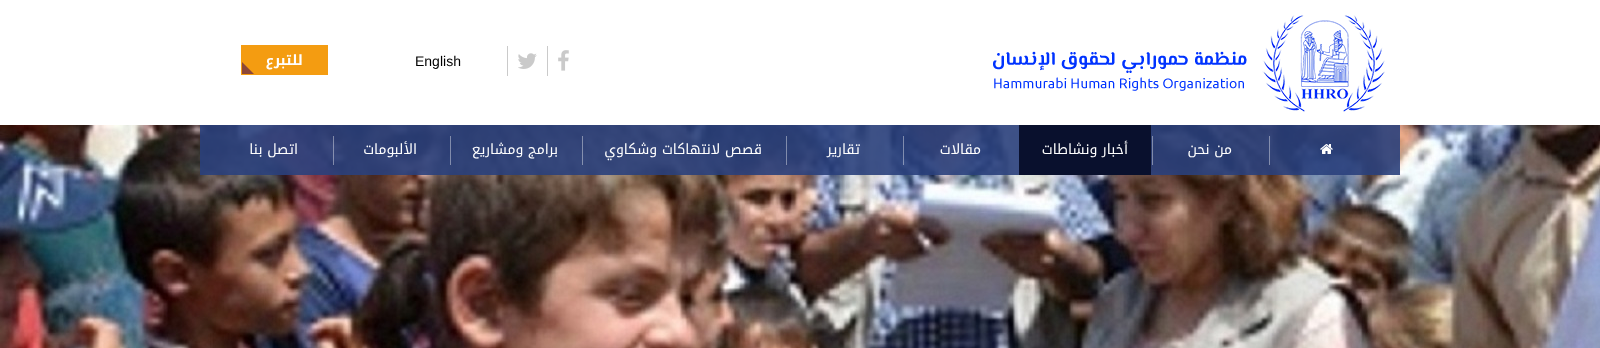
<!DOCTYPE html>
<meta charset="utf-8">
<style>body { margin: 0 } canvas { display: block }</style>
<canvas id="canvas" width="1600" height="348"></canvas>
<script type="module">
  const canvas = document.getElementById("canvas");
  const ctx = canvas.getContext("2d");
  ctx.miterLimit = 4;
  ctx.fontKerning = "normal";
  async function loadImage(src) {
    const img = new Image();
    img.src = src;
    await img.decode();
    return img;
  }

  ctx.fillStyle = "#ffffff";
  ctx.fillRect(0, 0, 1600, 348);
  ctx.drawImage(await loadImage("img1.png"), 993, 15, 392, 97);
  ctx.drawImage(await loadImage("img2.png"), 558, 50, 11, 21);
  ctx.fillStyle = "#cacaca";
  ctx.fillRect(547, 46, 1, 30);
  ctx.drawImage(await loadImage("img3.png"), 518, 53, 19, 16);
  ctx.fillRect(507, 46, 1, 30);
  ctx.font = "14px Liberation Sans";
  ctx.fillStyle = "#000000";
  ctx.fillText("English", 415, 66);
  ctx.fillStyle = "#f49c11";
  ctx.fillRect(241, 45, 87, 30);
  ctx.direction = "rtl";
  ctx.font = "bold 14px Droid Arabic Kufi";
  ctx.fillStyle = "#ffffff";
  ctx.fillText("للتبرع", 303, 65);
  ctx.fillStyle = "#8d4738";
  ctx.beginPath();
  ctx.moveTo(254, 74);
  ctx.lineTo(242, 74);
  ctx.lineTo(242, 62);
  ctx.closePath();
  ctx.fill();
  ctx.drawImage(await loadImage("img5.png"), 0, 125, 1600, 223);
  ctx.fillStyle = "rgba(42, 64, 124, 0.9)";
  ctx.fillRect(200, 125, 1200, 50);
  ctx.drawImage(await loadImage("img4.png"), 1320, 144, 13, 10);
  ctx.fillStyle = "rgba(255, 255, 255, 0.4)";
  ctx.fillRect(1269, 136, 1, 29);
  ctx.font = "14px Droid Arabic Kufi";
  ctx.fillStyle = "#ffffff";
  ctx.fillText("من نحن", 1232, 154);
  ctx.fillStyle = "rgba(255, 255, 255, 0.4)";
  ctx.fillRect(1152, 136, 1, 29);
  ctx.fillStyle = "#09102d";
  ctx.fillRect(1019, 125, 132, 50);
  ctx.fillStyle = "#ffffff";
  ctx.fillText("أخبار ونشاطات", 1128, 154);
  ctx.fillText("مقالات", 981, 154);
  ctx.fillStyle = "rgba(255, 255, 255, 0.4)";
  ctx.fillRect(903, 136, 1, 29);
  ctx.fillStyle = "#ffffff";
  ctx.fillText("تقارير", 860, 154);
  ctx.fillStyle = "rgba(255, 255, 255, 0.4)";
  ctx.fillRect(786, 136, 1, 29);
  ctx.fillStyle = "#ffffff";
  ctx.fillText("قصص لانتهاكات وشكاوي", 762, 154);
  ctx.fillStyle = "rgba(255, 255, 255, 0.4)";
  ctx.fillRect(582, 136, 1, 29);
  ctx.fillStyle = "#ffffff";
  ctx.fillText("برامج ومشاريع", 558, 154);
  ctx.fillStyle = "rgba(255, 255, 255, 0.4)";
  ctx.fillRect(450, 136, 1, 29);
  ctx.fillStyle = "#ffffff";
  ctx.fillText("الألبومات", 417, 154);
  ctx.fillStyle = "rgba(255, 255, 255, 0.4)";
  ctx.fillRect(333, 136, 1, 29);
  ctx.fillStyle = "#ffffff";
  ctx.fillText("اتصل بنا", 298, 154);
</script>
